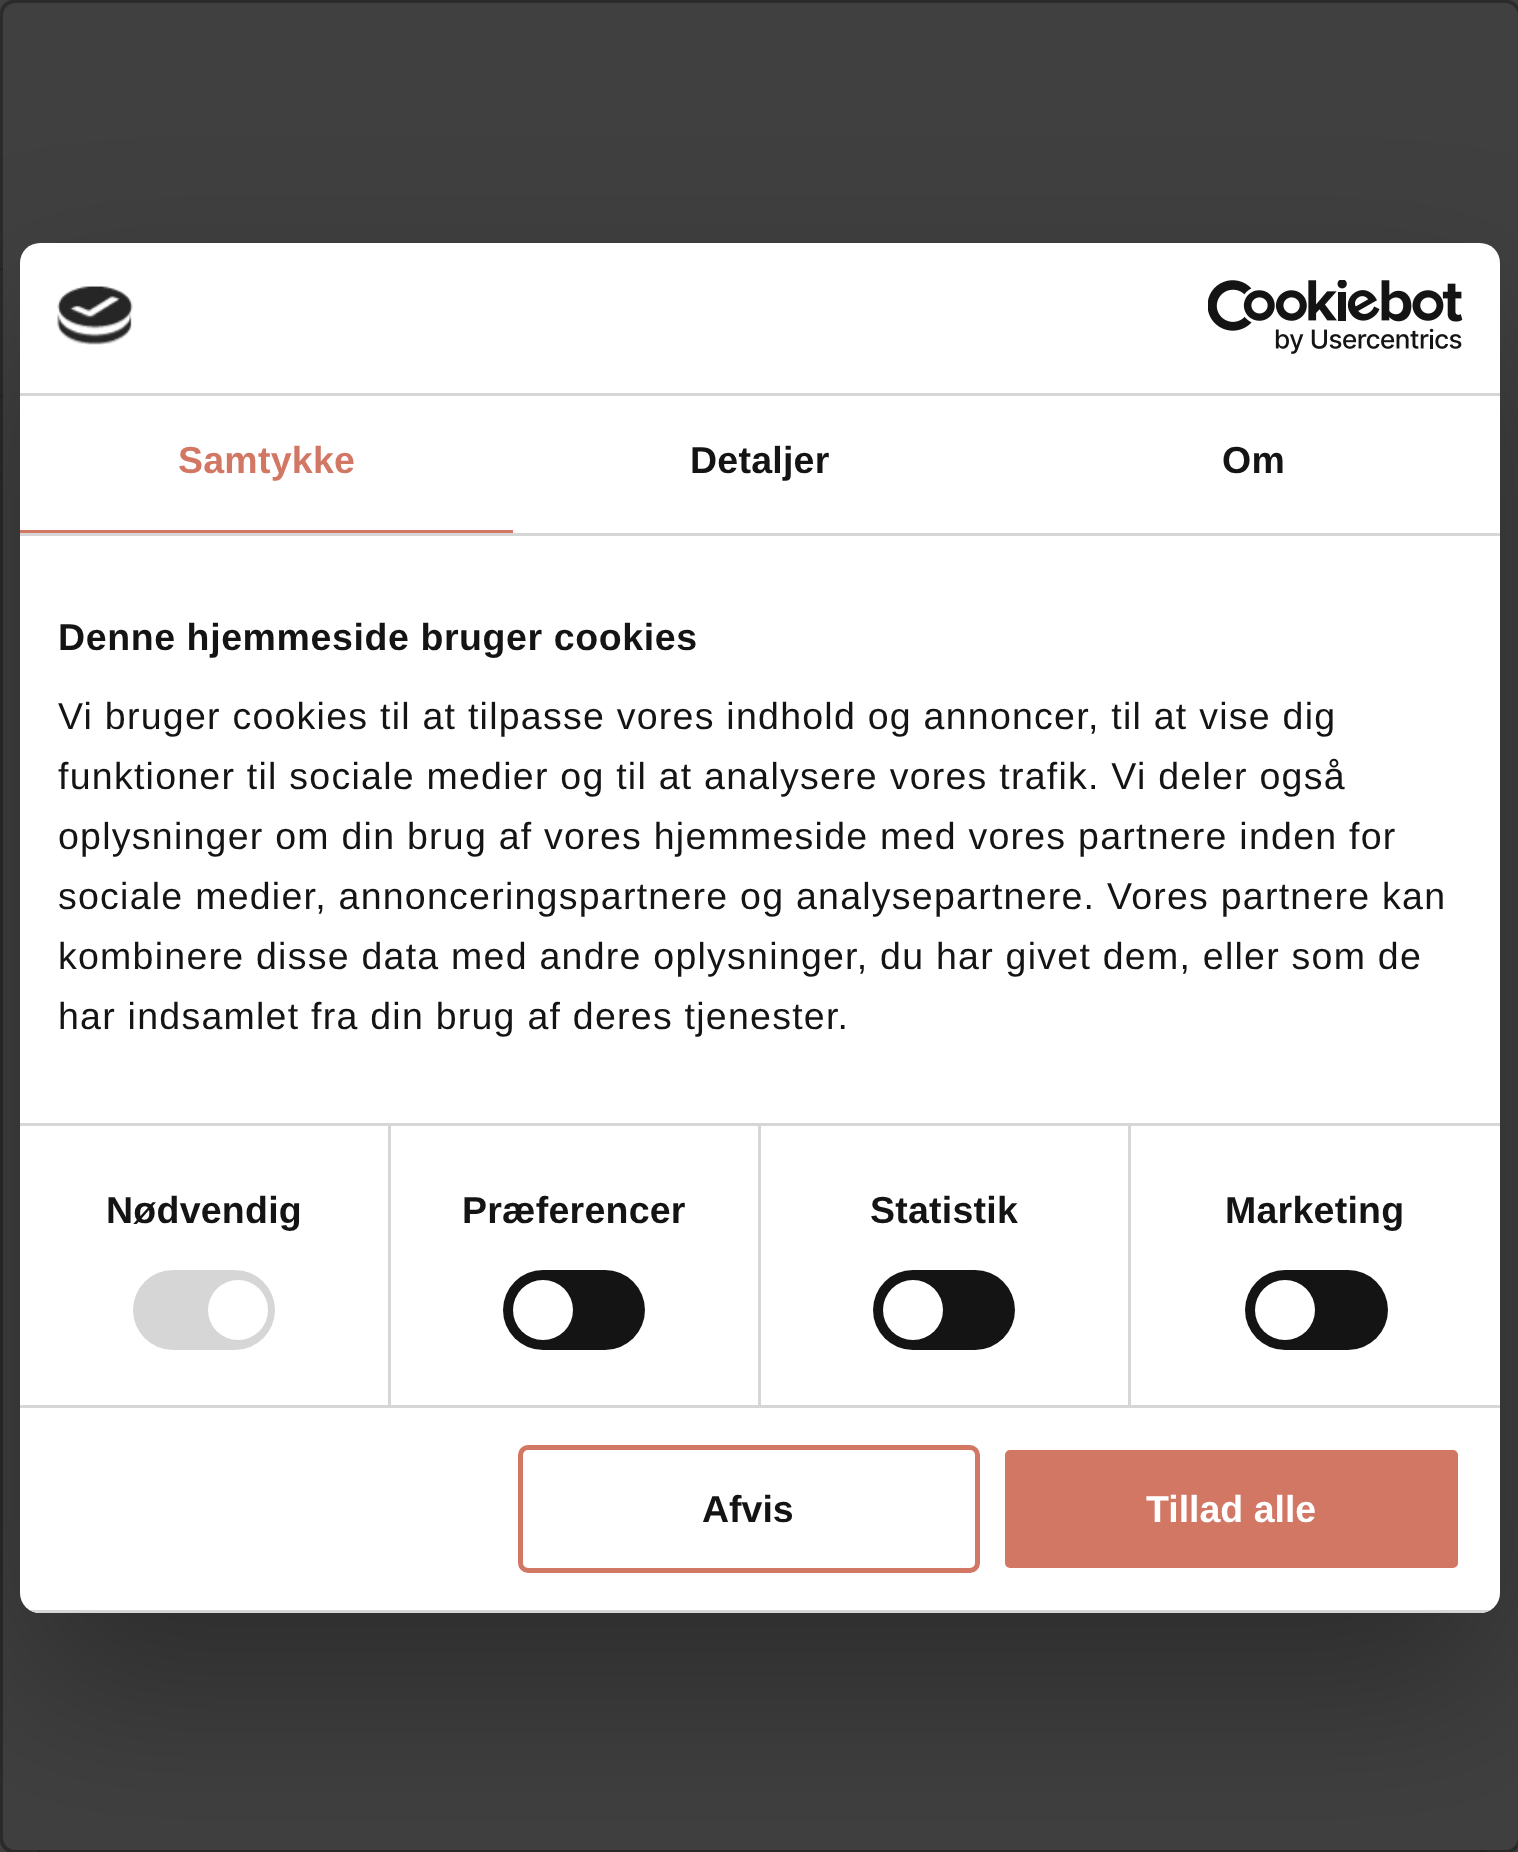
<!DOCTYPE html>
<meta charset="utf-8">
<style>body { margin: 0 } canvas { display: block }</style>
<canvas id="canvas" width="1518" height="1852"></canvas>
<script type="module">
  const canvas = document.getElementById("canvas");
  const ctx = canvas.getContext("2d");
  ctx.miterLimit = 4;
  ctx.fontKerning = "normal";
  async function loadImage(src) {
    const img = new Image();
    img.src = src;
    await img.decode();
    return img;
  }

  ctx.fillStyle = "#404040";
  ctx.fillRect(0, 0, 1518, 1852);
  ctx.fillStyle = "#3c3c3c";
  ctx.beginPath();
  ctx.moveTo(45, 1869);
  ctx.bezierCurveTo(47, 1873, 51, 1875, 56, 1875);
  ctx.lineTo(1475, 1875);
  ctx.bezierCurveTo(1482, 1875, 1488, 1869, 1488, 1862);
  ctx.lineTo(1488, 778);
  ctx.bezierCurveTo(1488, 773, 1485, 769, 1481, 766);
  ctx.bezierCurveTo(1482, 768, 1482, 770, 1482, 772);
  ctx.lineTo(1482, 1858);
  ctx.bezierCurveTo(1482, 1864, 1477, 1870, 1470, 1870);
  ctx.lineTo(50, 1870);
  ctx.bezierCurveTo(48, 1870, 47, 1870, 45, 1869);
  ctx.closePath();
  ctx.fill();
  ctx.strokeStyle = "rgba(0, 0, 0, 0.1)";
  ctx.lineWidth = 3;
  ctx.strokeRect(39.5, 761.5, 1442, 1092);
  ctx.drawImage(await loadImage("img1.png"), 40, 1850, 1237, 2);
  ctx.beginPath();
  ctx.moveTo(6, 1851);
  ctx.bezierCurveTo(9, 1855, 13, 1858, 18, 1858);
  ctx.lineTo(1512, 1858);
  ctx.bezierCurveTo(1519, 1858, 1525, 1852, 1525, 1845);
  ctx.lineTo(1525, 18);
  ctx.bezierCurveTo(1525, 13, 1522, 9, 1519, 7);
  ctx.bezierCurveTo(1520, 9, 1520, 10, 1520, 12);
  ctx.lineTo(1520, 1840);
  ctx.bezierCurveTo(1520, 1847, 1514, 1852, 1508, 1852);
  ctx.lineTo(12, 1852);
  ctx.bezierCurveTo(10, 1852, 8, 1852, 6, 1851);
  ctx.closePath();
  ctx.fill();
  ctx.fillStyle = "#3a3a3a";
  ctx.fillRect(0, 268, 3, 2);
  ctx.fillRect(0, 395, 3, 3);
  ctx.fillStyle = "#3b3b3b";
  ctx.fillRect(0, 473, 3, 3);
  ctx.fillStyle = "rgba(0, 0, 0, 0.25)";
  ctx.beginPath();
  ctx.roundRect(0, 0, 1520, 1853, 13);
  ctx.fill();
  ctx.beginPath();
  ctx.roundRect(1.5, 1.5, 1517, 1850, 11.5);
  ctx.stroke();
  ctx.fillStyle = "#404040";
  ctx.beginPath();
  ctx.roundRect(3, 3, 1515, 1847, 13);
  ctx.fill();
  ctx.fillStyle = "rgba(0, 0, 0, 0.3)";
  ctx.filter = "blur(85px)";
  ctx.beginPath();
  ctx.roundRect(20, 323, 1480, 1370, 20);
  ctx.fill();
  ctx.filter = "none";
  ctx.fillStyle = "#ffffff";
  ctx.beginPath();
  ctx.roundRect(20, 243, 1480, 1370, 20);
  ctx.fill();
  ctx.fillStyle = "#d6d6d6";
  ctx.fillRect(20, 393, 1480, 3);
  ctx.drawImage(await loadImage("img2.png"), 57, 286, 76, 59);
  ctx.drawImage(await loadImage("img3.png"), 1208, 280, 255, 74);
  ctx.fillRect(20, 533, 1480, 3);
  ctx.fillStyle = "#d27764";
  ctx.fillRect(20, 530, 493, 3);
  ctx.letterSpacing = "0.25px";
  ctx.font = "bold 37.5px Liberation Sans";
  ctx.fillText("Samtykke", 178, 473);
  ctx.fillStyle = "#141414";
  ctx.fillText("Detaljer", 690, 473);
  ctx.fillText("Om", 1222, 473);
  ctx.fillStyle = "#d6d6d6";
  ctx.fillRect(388, 1125, 3, 280);
  ctx.fillRect(758, 1125, 3, 280);
  ctx.fillRect(1128, 1125, 3, 280);
  ctx.fillRect(20, 1123, 1480, 3);
  ctx.letterSpacing = "0.6px";
  ctx.fillStyle = "#141414";
  ctx.fillText("Denne hjemmeside bruger cookies", 58, 650);
  ctx.letterSpacing = "1.25px";
  ctx.font = "37.5px Liberation Sans";
  ctx.fillText("Vi bruger cookies til at tilpasse vores indhold og annoncer, til at vise dig", 58, 729);
  ctx.fillText("funktioner til sociale medier og til at analysere vores trafik. Vi deler også", 58, 789);
  ctx.fillText("oplysninger om din brug af vores hjemmeside med vores partnere inden for", 58, 849);
  ctx.fillText("sociale medier, annonceringspartnere og analysepartnere. Vores partnere kan", 58, 909);
  ctx.fillText("kombinere disse data med andre oplysninger, du har givet dem, eller som de", 58, 969);
  ctx.fillText("har indsamlet fra din brug af deres tjenester.", 58, 1029);
  ctx.fillStyle = "#d6d6d6";
  ctx.fillRect(20, 1405, 1480, 3);
  ctx.letterSpacing = "0.25px";
  ctx.font = "bold 37.5px Liberation Sans";
  ctx.fillStyle = "#141414";
  ctx.fillText("Nødvendig", 106, 1223);
  ctx.fillStyle = "#d6d6d6";
  ctx.beginPath();
  ctx.roundRect(133, 1270, 142, 80, 40);
  ctx.fill();
  ctx.fillStyle = "#ffffff";
  ctx.beginPath();
  ctx.arc(238, 1310, 30, 0, Math.PI * 2);
  ctx.fill();
  ctx.fillStyle = "#141414";
  ctx.fillText("Præferencer", 462, 1223);
  ctx.beginPath();
  ctx.roundRect(503, 1270, 142, 80, 40);
  ctx.fill();
  ctx.fillStyle = "#ffffff";
  ctx.beginPath();
  ctx.arc(543, 1310, 30, 0, Math.PI * 2);
  ctx.fill();
  ctx.fillStyle = "#141414";
  ctx.fillText("Statistik", 870, 1223);
  ctx.beginPath();
  ctx.roundRect(873, 1270, 142, 80, 40);
  ctx.fill();
  ctx.fillStyle = "#ffffff";
  ctx.beginPath();
  ctx.arc(913, 1310, 30, 0, Math.PI * 2);
  ctx.fill();
  ctx.fillStyle = "#141414";
  ctx.fillText("Marketing", 1225, 1223);
  ctx.beginPath();
  ctx.roundRect(1245, 1270, 143, 80, 40);
  ctx.fill();
  ctx.fillStyle = "#ffffff";
  ctx.beginPath();
  ctx.arc(1285, 1310, 30, 0, Math.PI * 2);
  ctx.fill();
  ctx.save();
  ctx.beginPath();
  ctx.roundRect(20, 243, 1480, 1370, 20);
  ctx.clip();
  ctx.fillStyle = "#d6d6d6";
  ctx.fillRect(29, 1610, 1462, 3);
  ctx.restore();
  ctx.beginPath();
  ctx.roundRect(520.5, 1447.5, 457, 123, 7.5);
  ctx.strokeStyle = "#d27764";
  ctx.lineWidth = 5;
  ctx.stroke();
  ctx.letterSpacing = "0px";
  ctx.fillStyle = "#141414";
  ctx.fillText("Afvis", 702, 1522);
  ctx.fillStyle = "#d27764";
  ctx.beginPath();
  ctx.roundRect(1002.5, 1447.5, 458, 123, 7.5);
  ctx.fill();
  ctx.strokeStyle = "#ffffff";
  ctx.stroke();
  ctx.fillStyle = "#ffffff";
  ctx.fillText("Tillad alle", 1146, 1522);
</script>
